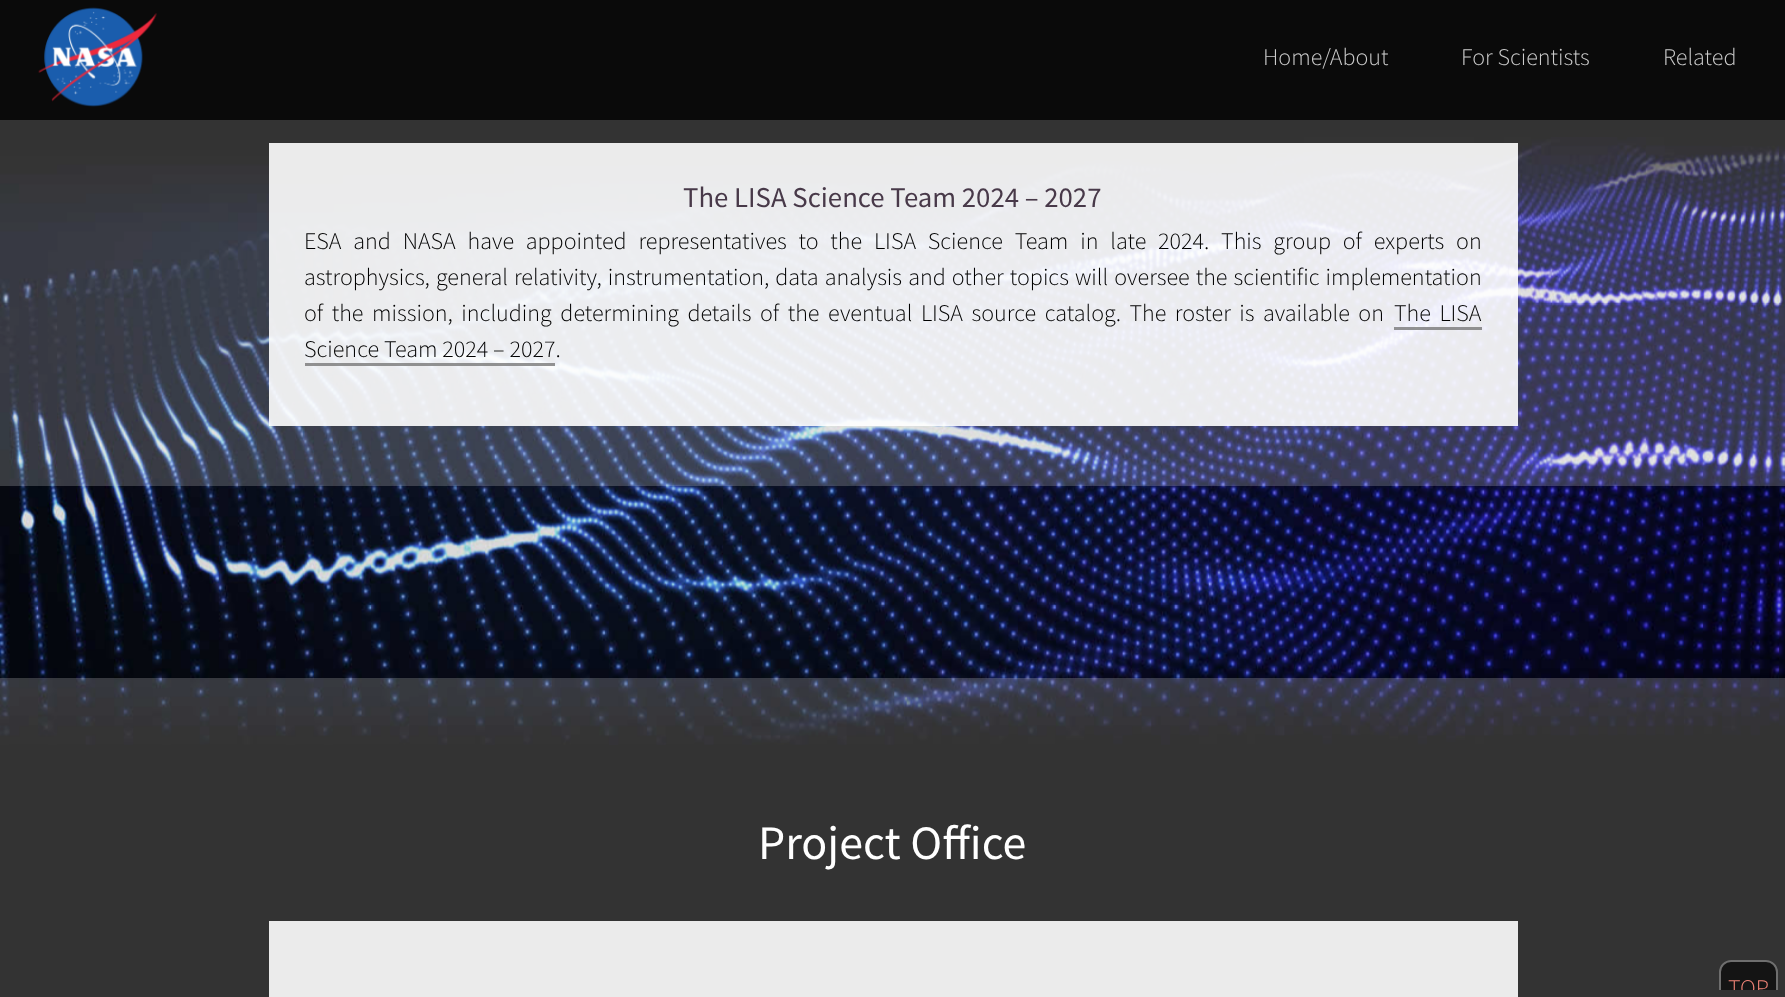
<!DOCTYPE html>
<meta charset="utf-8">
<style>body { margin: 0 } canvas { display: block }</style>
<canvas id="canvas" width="1785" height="997"></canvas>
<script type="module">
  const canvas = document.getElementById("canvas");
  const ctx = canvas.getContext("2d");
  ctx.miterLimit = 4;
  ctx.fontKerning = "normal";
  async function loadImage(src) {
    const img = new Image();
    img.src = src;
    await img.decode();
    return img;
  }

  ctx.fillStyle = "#000000";
  ctx.fillRect(0, 0, 1785, 997);
  ctx.drawImage(await loadImage("img2.png"), 0, 137, 1785, 608);
  ctx.fillStyle = "rgba(255, 255, 255, 0.2)";
  ctx.fillRect(0, 0, 1785, 486);
  ctx.fillStyle = "rgba(0, 0, 0, 0.8)";
  ctx.fillRect(0, 0, 1785, 120);
  ctx.drawImage(await loadImage("img1.png"), 38, 7, 119, 100);
  ctx.font = "300 24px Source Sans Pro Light";
  ctx.fillStyle = "#cccccc";
  ctx.fillText("Home/About", 1263, 65);
  ctx.fillText("For Scientists", 1461, 65);
  ctx.fillText("Related", 1663, 65);
  ctx.fillStyle = "rgba(255, 255, 255, 0.9)";
  ctx.fillRect(269, 143, 1249, 283);
  ctx.font = "28.75px Source Sans Pro";
  ctx.fillStyle = "#483949";
  ctx.fillText("The LISA Science Team 2024 – 2027", 683, 207);
  ctx.wordSpacing = "7px";
  ctx.font = "300 24px Source Sans Pro Light";
  ctx.fillStyle = "#000000";
  ctx.fillText("ESA and NASA have appointed representatives to the LISA Science Team in late 2024. This group of experts on", 304, 249);
  ctx.wordSpacing = "1.25px";
  ctx.fillText("astrophysics, general relativity, instrumentation, data analysis and other topics will oversee the scientific implementation", 304, 285);
  ctx.wordSpacing = "3.75px";
  ctx.fillText("of the mission, including determining details of the eventual LISA source catalog. The roster is available on", 304, 321);
  ctx.fillText("The LISA", 1394, 321);
  ctx.fillStyle = "rgba(120, 120, 120, 0.8)";
  ctx.fillRect(1394, 327, 88, 3);
  ctx.wordSpacing = "0px";
  ctx.fillStyle = "#000000";
  ctx.fillText("Science Team 2024 – 2027.", 304, 357);
  ctx.fillStyle = "rgba(120, 120, 120, 0.8)";
  ctx.fillRect(305, 363, 250, 3);
  ctx.fillStyle = "rgba(255, 255, 255, 0.2)";
  ctx.fillRect(0, 678, 1785, 319);
  ctx.font = "48px Source Sans Pro";
  ctx.fillStyle = "#ffffff";
  ctx.fillText("Project Office", 758, 859);
  ctx.fillStyle = "#ebebeb";
  ctx.fillRect(269, 921, 1249, 76);
  ctx.fillStyle = "#141414";
  ctx.beginPath();
  ctx.roundRect(1719, 960, 59, 30, [12, 12, 0, 0]);
  ctx.fill();
  ctx.save();
  ctx.beginPath();
  ctx.rect(1719, 960, 59, 30);
  ctx.clip();
  ctx.beginPath();
  ctx.roundRect(1720, 961, 57, 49, 11);
  ctx.strokeStyle = "rgba(200, 200, 200, 0.5)";
  ctx.lineWidth = 2;
  ctx.stroke();
  ctx.font = "300 24px Source Sans Pro Light";
  ctx.fillStyle = "#ef8376";
  ctx.fillText("TOP", 1728, 996);
  ctx.restore();
</script>
